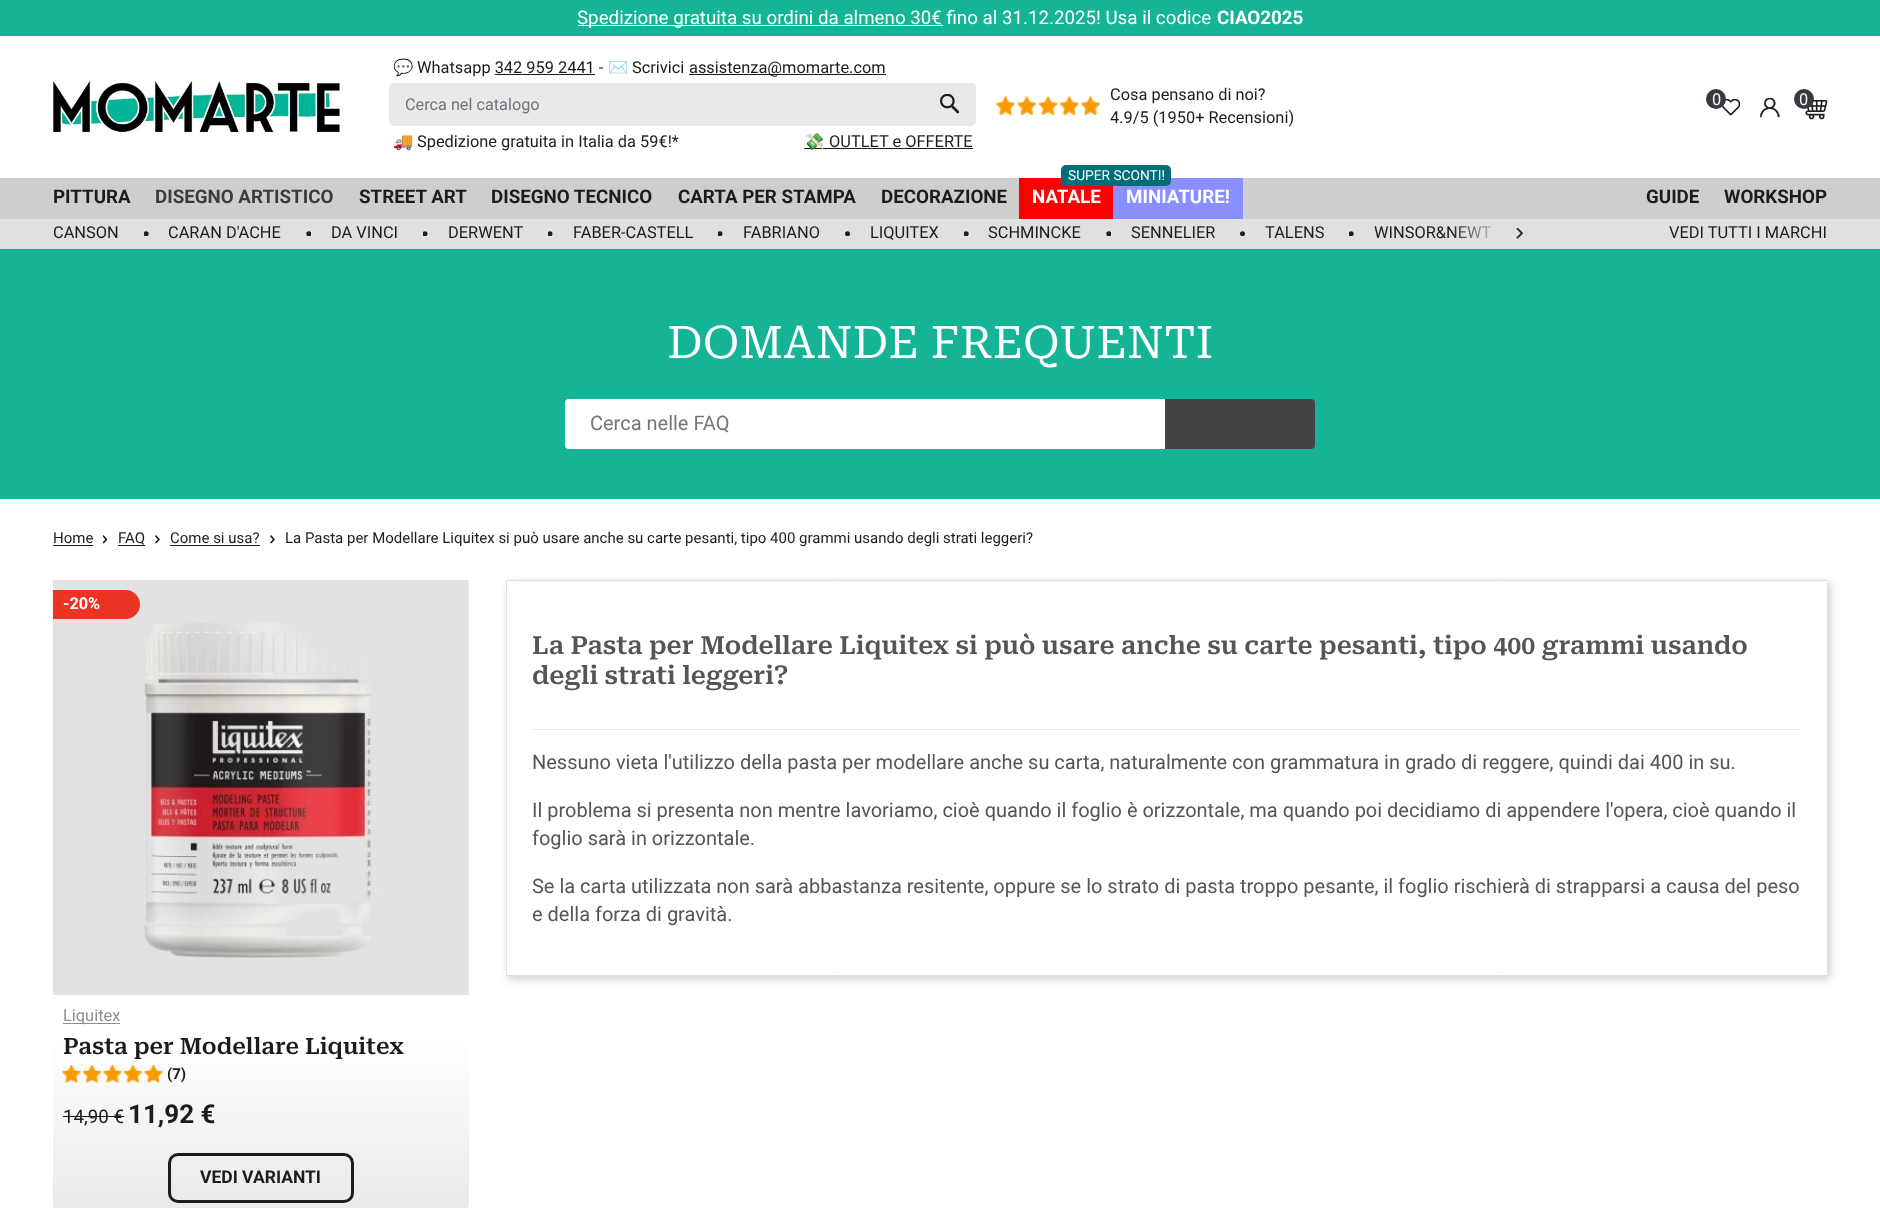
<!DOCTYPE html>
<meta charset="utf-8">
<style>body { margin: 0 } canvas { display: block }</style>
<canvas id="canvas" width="1880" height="1208"></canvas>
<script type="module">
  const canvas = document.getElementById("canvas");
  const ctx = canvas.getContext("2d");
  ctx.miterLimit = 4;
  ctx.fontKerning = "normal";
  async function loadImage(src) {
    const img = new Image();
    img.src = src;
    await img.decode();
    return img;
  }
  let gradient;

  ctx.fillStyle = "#ffffff";
  ctx.fillRect(0, 0, 1880, 1208);
  ctx.fillStyle = "#15b496";
  ctx.fillRect(0, 0, 1880, 36);
  ctx.fillStyle = "#ffffff";
  ctx.fillRect(578, 25, 365, 1);
  ctx.font = "18.75px Roboto";
  ctx.fillText("Spedizione gratuita su ordini da almeno 30€ fino al 31.12.2025! Usa il codice", 577, 24);
  ctx.font = "bold 18.75px Roboto";
  ctx.fillText("CIAO2025", 1217, 24);
  ctx.drawImage(await loadImage("img1.png"), 53, 80, 287, 53);
  ctx.font = "16.4px Noto Color Emoji";
  ctx.fillStyle = "#1c1c1c";
  ctx.fillText("💬", 393, 73);
  ctx.font = "16.4px Roboto";
  ctx.fillText("Whatsapp 342 959 2441 -", 417, 73);
  ctx.font = "16.4px Noto Color Emoji";
  ctx.fillText("✉️", 608, 73);
  ctx.font = "16.4px Roboto";
  ctx.fillText("Scrivici", 632, 73);
  ctx.fillRect(689, 74, 197, 1);
  ctx.fillText("assistenza@momarte.com", 689, 73);
  ctx.fillRect(495, 74, 100, 1);
  ctx.fillStyle = "#e9e9e9";
  ctx.beginPath();
  ctx.roundRect(389.5, 83.5, 586, 42, 4.5);
  ctx.fill();
  ctx.strokeStyle = "#e9e9e9";
  ctx.stroke();
  ctx.font = "16.25px Roboto";
  ctx.fillStyle = "#6c757d";
  ctx.fillText("Cerca nel catalogo", 405, 110);
  ctx.drawImage(await loadImage("img2.png"), 940, 94, 19, 20);
  ctx.font = "16.4px Noto Color Emoji";
  ctx.fillStyle = "#1c1c1c";
  ctx.fillText("🚚", 393, 147);
  ctx.font = "16.4px Roboto";
  ctx.fillText("Spedizione gratuita in Italia da 59€!*", 417, 147);
  ctx.fillRect(804, 148, 169, 1);
  ctx.font = "16.4px Noto Color Emoji";
  ctx.fillText("💸", 804, 147);
  ctx.font = "16.4px Roboto";
  ctx.fillText("OUTLET e OFFERTE", 829, 147);
  ctx.drawImage(await loadImage("img3.png"), 996, 96, 104, 19);
  ctx.fillText("Cosa pensano di noi?", 1110, 100);
  ctx.fillText("4.9/5 (1950+ Recensioni)", 1110, 123);
  ctx.drawImage(await loadImage("img4.png"), 1722, 99, 18, 17);
  ctx.fillStyle = "#343a40";
  ctx.beginPath();
  ctx.arc(1716, 99, 10, 0, Math.PI * 2);
  ctx.fill();
  ctx.fillStyle = "#ffffff";
  ctx.fillText("0", 1712, 105);
  ctx.drawImage(await loadImage("img5.png"), 1760, 98, 20, 20);
  ctx.drawImage(await loadImage("img6.png"), 1805, 100, 23, 20);
  ctx.fillStyle = "#343a40";
  ctx.beginPath();
  ctx.arc(1804, 99, 10, 0, Math.PI * 2);
  ctx.fill();
  ctx.fillStyle = "#ffffff";
  ctx.fillText("0", 1799, 105);
  ctx.fillStyle = "#cecece";
  ctx.fillRect(0, 178, 1880, 41);
  ctx.font = "bold 18.75px Roboto";
  ctx.fillStyle = "#1c1c1c";
  ctx.fillText("PITTURA", 53, 203);
  ctx.fillStyle = "#3b3b3b";
  ctx.fillText("DISEGNO ARTISTICO", 155, 203);
  ctx.fillStyle = "#1c1c1c";
  ctx.fillText("STREET ART", 359, 203);
  ctx.fillText("DISEGNO TECNICO", 491, 203);
  ctx.fillText("CARTA PER STAMPA", 678, 203);
  ctx.fillText("DECORAZIONE", 881, 203);
  ctx.fillStyle = "#ff0000";
  ctx.fillRect(1019, 178, 94, 41);
  ctx.fillStyle = "#8a8fff";
  ctx.fillRect(1113, 178, 130, 41);
  ctx.fillStyle = "#006d77";
  ctx.beginPath();
  ctx.roundRect(1061, 165, 110, 21, 5);
  ctx.fill();
  ctx.font = "13.75px Roboto";
  ctx.fillStyle = "#ffffff";
  ctx.fillText("SUPER SCONTI!", 1068, 180);
  ctx.font = "bold 18.75px Roboto";
  ctx.fillText("NATALE", 1032, 203);
  ctx.fillText("MINIATURE!", 1126, 203);
  ctx.fillStyle = "#1c1c1c";
  ctx.fillText("GUIDE", 1646, 203);
  ctx.fillText("WORKSHOP", 1724, 203);
  ctx.fillStyle = "#e0e0e0";
  ctx.fillRect(0, 219, 1880, 30);
  ctx.font = "16.4px Roboto";
  ctx.fillStyle = "#1c1c1c";
  ctx.fillText("CANSON", 53, 238);
  ctx.save();
  ctx.beginPath();
  ctx.rect(144, 231, 5, 5);
  ctx.clip();
  ctx.beginPath();
  ctx.arc(146.2, 233.8, 2.5, 0, Math.PI * 2);
  ctx.fill();
  ctx.restore();
  ctx.fillText("CARAN D'ACHE", 168, 238);
  ctx.save();
  ctx.beginPath();
  ctx.rect(306, 231, 5, 5);
  ctx.clip();
  ctx.beginPath();
  ctx.arc(308.8, 233.8, 2.5, 0, Math.PI * 2);
  ctx.fill();
  ctx.restore();
  ctx.fillText("DA VINCI", 331, 238);
  ctx.save();
  ctx.beginPath();
  ctx.rect(423, 231, 5, 5);
  ctx.clip();
  ctx.beginPath();
  ctx.arc(425, 233.8, 2.5, 0, Math.PI * 2);
  ctx.fill();
  ctx.restore();
  ctx.fillText("DERWENT", 448, 238);
  ctx.save();
  ctx.beginPath();
  ctx.rect(548, 231, 5, 5);
  ctx.clip();
  ctx.beginPath();
  ctx.arc(550, 233.8, 2.5, 0, Math.PI * 2);
  ctx.fill();
  ctx.restore();
  ctx.fillText("FABER-CASTELL", 573, 238);
  ctx.save();
  ctx.beginPath();
  ctx.rect(718, 231, 5, 5);
  ctx.clip();
  ctx.beginPath();
  ctx.arc(720, 233.8, 2.5, 0, Math.PI * 2);
  ctx.fill();
  ctx.restore();
  ctx.fillText("FABRIANO", 743, 238);
  ctx.save();
  ctx.beginPath();
  ctx.rect(845, 231, 5, 5);
  ctx.clip();
  ctx.beginPath();
  ctx.arc(847.5, 233.8, 2.5, 0, Math.PI * 2);
  ctx.fill();
  ctx.restore();
  ctx.fillText("LIQUITEX", 870, 238);
  ctx.save();
  ctx.beginPath();
  ctx.rect(964, 231, 5, 5);
  ctx.clip();
  ctx.beginPath();
  ctx.arc(966.2, 233.8, 2.5, 0, Math.PI * 2);
  ctx.fill();
  ctx.restore();
  ctx.fillText("SCHMINCKE", 988, 238);
  ctx.save();
  ctx.beginPath();
  ctx.rect(1106, 231, 5, 5);
  ctx.clip();
  ctx.beginPath();
  ctx.arc(1108.8, 233.8, 2.5, 0, Math.PI * 2);
  ctx.fill();
  ctx.restore();
  ctx.fillText("SENNELIER", 1131, 238);
  ctx.save();
  ctx.beginPath();
  ctx.rect(1240, 231, 5, 5);
  ctx.clip();
  ctx.beginPath();
  ctx.arc(1242.5, 233.8, 2.5, 0, Math.PI * 2);
  ctx.fill();
  ctx.restore();
  ctx.fillText("TALENS", 1265, 238);
  ctx.save();
  ctx.beginPath();
  ctx.rect(1349, 231, 5, 5);
  ctx.clip();
  ctx.beginPath();
  ctx.arc(1351.2, 233.8, 2.5, 0, Math.PI * 2);
  ctx.fill();
  ctx.restore();
  ctx.fillText("WINSOR&NEWT", 1374, 238);
  gradient = ctx.createLinearGradient(1450, 233, 1525, 233);
  gradient.addColorStop(0, "rgba(224, 224, 224, 0)");
  gradient.addColorStop(0.7, "#e0e0e0");
  ctx.fillStyle = gradient;
  ctx.fillRect(1451, 226, 41, 12);
  ctx.drawImage(await loadImage("img7.png"), 1516, 228, 7, 11);
  ctx.fillStyle = "#1c1c1c";
  ctx.fillText("VEDI TUTTI I MARCHI", 1669, 238);
  ctx.fillStyle = "#15b496";
  ctx.fillRect(0, 249, 1880, 250);
  ctx.font = "45px Roboto Serif";
  ctx.fillStyle = "#ffffff";
  ctx.fillText("DOMANDE FREQUENTI", 667, 358);
  ctx.beginPath();
  ctx.roundRect(565, 399, 600, 50, [4, 0, 0, 4]);
  ctx.fill();
  ctx.font = "20px Roboto";
  ctx.fillStyle = "#757575";
  ctx.fillText("Cerca nelle FAQ", 590, 430);
  ctx.fillStyle = "#434345";
  ctx.beginPath();
  ctx.roundRect(1165, 399, 150, 50, [0, 4, 4, 0]);
  ctx.fill();
  ctx.font = "15px Roboto";
  ctx.fillStyle = "#1c1c1c";
  ctx.fillText("Home", 53, 543);
  ctx.fillRect(53, 545, 40, 1);
  ctx.drawImage(await loadImage("img8.png"), 103, 535, 5, 9);
  ctx.fillText("FAQ", 118, 543);
  ctx.fillRect(118, 545, 27, 1);
  ctx.drawImage(await loadImage("img9.png"), 155, 535, 5, 9);
  ctx.fillText("Come si usa?", 170, 543);
  ctx.fillRect(170, 545, 90, 1);
  ctx.drawImage(await loadImage("img9.png"), 270, 535, 5, 9);
  ctx.fillText("La Pasta per Modellare Liquitex si può usare anche su carte pesanti, tipo 400 grammi usando degli strati leggeri?", 285, 543);
  ctx.fillStyle = "#f3f3f3";
  ctx.fillRect(468, 580, 1, 415);
  ctx.drawImage(await loadImage("img10.png"), 52, 580, 417, 415);
  ctx.fillStyle = "#ea3323";
  ctx.beginPath();
  ctx.roundRect(53, 590, 87, 29, [0, 14.5, 14.5, 0]);
  ctx.fill();
  ctx.font = "bold 16.25px Roboto";
  ctx.fillStyle = "#ffffff";
  ctx.fillText("-20%", 63, 609);
  gradient = ctx.createLinearGradient(261, 995, 261, 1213);
  gradient.addColorStop(0.2, "#ffffff");
  gradient.addColorStop(1, "#e9e9e9");
  ctx.fillStyle = gradient;
  ctx.beginPath();
  ctx.moveTo(53, 995);
  ctx.lineTo(469, 995);
  ctx.lineTo(469, 1203);
  ctx.bezierCurveTo(469, 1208.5, 464.5, 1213, 459, 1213);
  ctx.lineTo(63, 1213);
  ctx.bezierCurveTo(57.5, 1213, 53, 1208.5, 53, 1203);
  ctx.closePath();
  ctx.fill();
  ctx.fillStyle = "#8d8d8d";
  ctx.fillRect(63, 1023, 57, 1);
  ctx.font = "16.4px Roboto";
  ctx.fillText("Liquitex", 63, 1021);
  ctx.font = "600 22.5px Roboto Serif";
  ctx.fillStyle = "#1c1c1c";
  ctx.fillText("Pasta per Modellare Liquitex", 63, 1054);
  ctx.drawImage(await loadImage("img11.png"), 62, 1065, 101, 18);
  ctx.font = "bold 15px Roboto";
  ctx.fillText("(7)", 167, 1079);
  ctx.font = "18.75px Roboto";
  ctx.fillText("14,90 €", 63, 1123);
  ctx.fillRect(63, 1116, 61, 1);
  ctx.font = "bold 26px Roboto";
  ctx.fillText("11,92 €", 128, 1123);
  ctx.beginPath();
  ctx.roundRect(169.5, 1154.5, 183, 47, 8.5);
  ctx.strokeStyle = "#1c1c1c";
  ctx.lineWidth = 3;
  ctx.stroke();
  ctx.font = "bold 17.5px Roboto";
  ctx.fillText("VEDI VARIANTI", 200, 1183);
  ctx.fillStyle = "rgba(0, 0, 0, 0.2)";
  ctx.filter = "blur(5px)";
  ctx.beginPath();
  ctx.rect(509, 583, 1321, 396);
  ctx.fill();
  ctx.filter = "none";
  ctx.fillStyle = "#ffffff";
  ctx.beginPath();
  ctx.rect(506.5, 580.5, 1321, 395);
  ctx.fill();
  ctx.strokeStyle = "#dfdfdf";
  ctx.lineWidth = 1;
  ctx.stroke();
  ctx.font = "600 25px Roboto Serif";
  ctx.fillStyle = "#555555";
  ctx.fillText("La Pasta per Modellare Liquitex si può usare anche su carte pesanti, tipo 400 grammi usando", 532, 654);
  ctx.fillText("degli strati leggeri?", 532, 684);
  ctx.fillStyle = "#e6e6e6";
  ctx.fillRect(533, 729, 1268, 1);
  ctx.font = "20px Roboto";
  ctx.fillStyle = "#555555";
  ctx.fillText("Nessuno vieta l'utilizzo della pasta per modellare anche su carta, naturalmente con grammatura in grado di reggere, quindi dai 400 in su.", 532, 769);
  ctx.fillText("Il problema si presenta non mentre lavoriamo, cioè quando il foglio è orizzontale, ma quando poi decidiamo di appendere l'opera, cioè quando il", 532, 817);
  ctx.fillText("foglio sarà in orizzontale.", 532, 845);
  ctx.fillText("Se la carta utilizzata non sarà abbastanza resitente, oppure se lo strato di pasta troppo pesante, il foglio rischierà di strapparsi a causa del peso", 532, 893);
  ctx.fillText("e della forza di gravità.", 532, 921);
</script>
